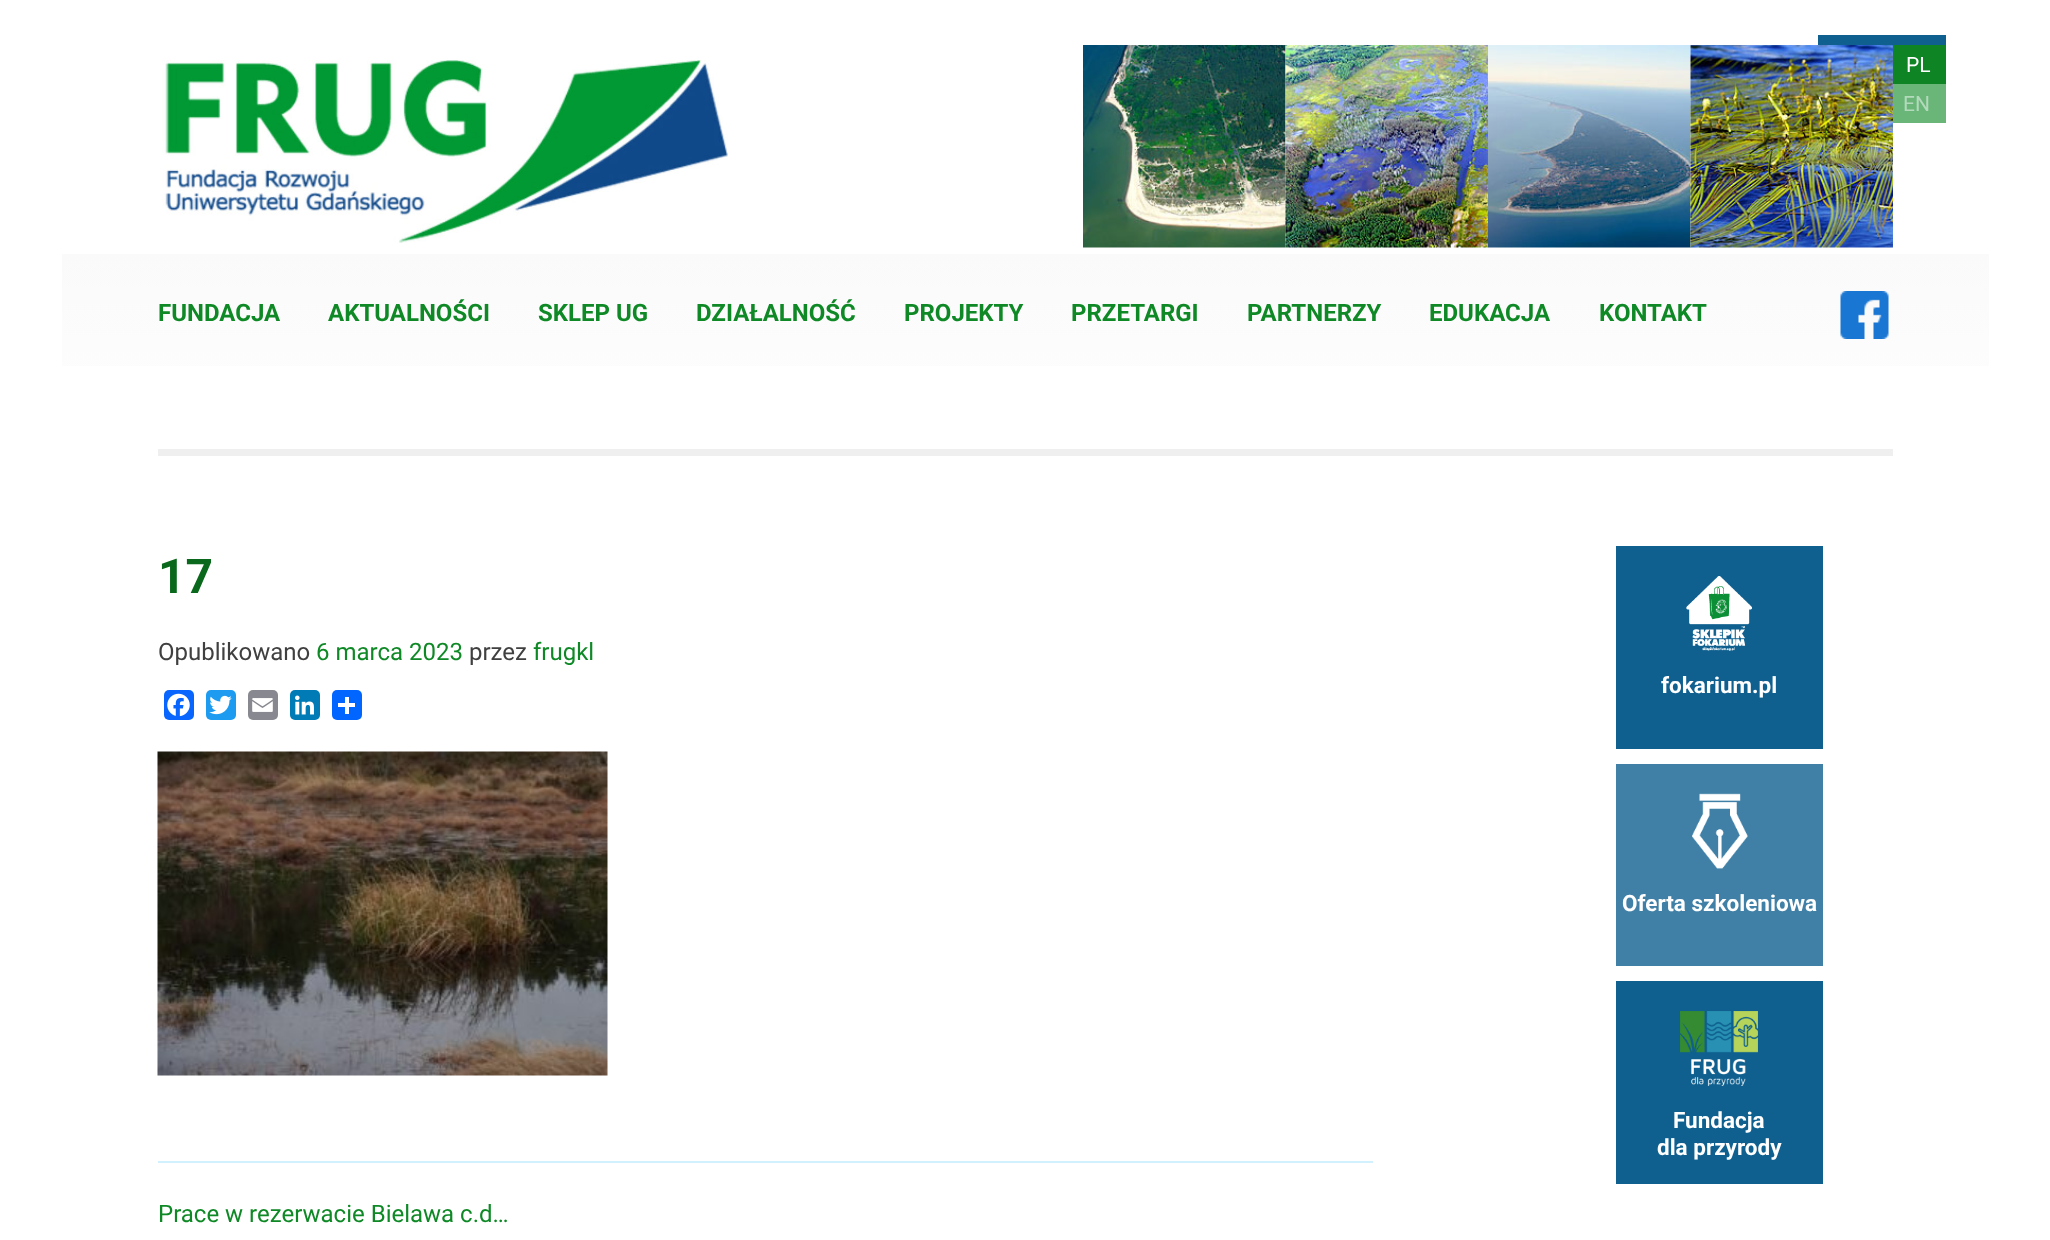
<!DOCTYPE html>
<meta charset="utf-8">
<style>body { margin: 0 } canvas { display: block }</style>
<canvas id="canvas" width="2050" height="1240"></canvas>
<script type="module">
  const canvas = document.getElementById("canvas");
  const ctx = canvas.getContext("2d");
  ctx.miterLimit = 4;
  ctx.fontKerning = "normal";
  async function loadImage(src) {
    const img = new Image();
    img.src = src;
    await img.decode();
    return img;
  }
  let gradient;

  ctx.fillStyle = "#ffffff";
  ctx.fillRect(0, 0, 2050, 1240);
  ctx.drawImage(await loadImage("img1.png"), 162, 60, 566, 183);
  ctx.drawImage(await loadImage("img2.png"), 1083, 45, 203, 203);
  ctx.drawImage(await loadImage("img3.png"), 1285, 45, 203, 203);
  ctx.drawImage(await loadImage("img4.png"), 1488, 45, 203, 203);
  ctx.drawImage(await loadImage("img5.png"), 1690, 45, 203, 203);
  ctx.fillStyle = "#0f608f";
  ctx.fillRect(1818, 35, 128, 10);
  ctx.fillStyle = "#0e8425";
  ctx.fillRect(1893, 45, 53, 39);
  ctx.font = "21px Roboto";
  ctx.fillStyle = "#ffffff";
  ctx.fillText("PL", 1906, 72);
  ctx.fillStyle = "#6ab679";
  ctx.fillRect(1893, 84, 53, 39);
  ctx.fillStyle = "#b3dabb";
  ctx.fillText("EN", 1903, 111);
  gradient = ctx.createLinearGradient(1025, 253, 1025, 389);
  gradient.addColorStop(0, "#fafafa");
  gradient.addColorStop(1, "#fdfdfd");
  ctx.fillStyle = gradient;
  ctx.fillRect(62, 254, 1927, 112);
  ctx.font = "bold 24px Roboto";
  ctx.fillStyle = "#0f8926";
  ctx.fillText("FUNDACJA", 158, 321);
  ctx.fillText("AKTUALNOŚCI", 328, 321);
  ctx.fillText("SKLEP UG", 538, 321);
  ctx.fillText("DZIAŁALNOŚĆ", 696, 321);
  ctx.fillText("PROJEKTY", 904, 321);
  ctx.fillText("PRZETARGI", 1071, 321);
  ctx.fillText("PARTNERZY", 1247, 321);
  ctx.fillText("EDUKACJA", 1429, 321);
  ctx.fillText("KONTAKT", 1599, 321);
  ctx.drawImage(await loadImage("img6.png"), 1840, 291, 49, 48);
  ctx.fillStyle = "#efefef";
  ctx.fillRect(158, 449, 1735, 7);
  ctx.fillStyle = "#d2f1ff";
  ctx.fillRect(158, 1161, 1215, 2);
  ctx.font = "bold 48px Roboto";
  ctx.fillStyle = "#09681b";
  ctx.fillText("17", 158, 593);
  ctx.font = "24px Roboto";
  ctx.fillStyle = "#404040";
  ctx.fillText("Opublikowano", 158, 660);
  ctx.fillStyle = "#0f8926";
  ctx.fillText("6 marca 2023", 316, 660);
  ctx.fillStyle = "#404040";
  ctx.fillText("przez", 469, 660);
  ctx.fillStyle = "#0f8926";
  ctx.fillText("frugkl", 533, 660);
  ctx.fillStyle = "#0866ff";
  ctx.beginPath();
  ctx.roundRect(164, 690, 30, 30, 5);
  ctx.fill();
  ctx.drawImage(await loadImage("img7.png"), 167, 693, 23, 24);
  ctx.fillStyle = "#1d9bf0";
  ctx.beginPath();
  ctx.roundRect(206, 690, 30, 30, 5);
  ctx.fill();
  ctx.drawImage(await loadImage("img8.png"), 209, 695, 23, 20);
  ctx.fillStyle = "#888990";
  ctx.beginPath();
  ctx.roundRect(248, 690, 30, 30, 5);
  ctx.fill();
  ctx.drawImage(await loadImage("img9.png"), 252, 698, 21, 14);
  ctx.fillStyle = "#007bb5";
  ctx.beginPath();
  ctx.roundRect(290, 690, 30, 30, 5);
  ctx.fill();
  ctx.drawImage(await loadImage("img10.png"), 295, 695, 19, 20);
  ctx.fillStyle = "#0166ff";
  ctx.beginPath();
  ctx.roundRect(332, 690, 30, 30, 5);
  ctx.fill();
  ctx.fillStyle = "#ffffff";
  ctx.fillRect(345, 697, 4, 17);
  ctx.fillRect(338, 703, 17, 4);
  ctx.drawImage(await loadImage("img11.png"), 157, 751, 451, 325);
  ctx.fillStyle = "#0f8926";
  ctx.fillText("Prace w rezerwacie Bielawa c.d…", 158, 1222);
  ctx.fillStyle = "#0f608f";
  ctx.fillRect(1616, 546, 207, 203);
  ctx.drawImage(await loadImage("img12.png"), 1686, 576, 66, 75);
  ctx.font = "bold 22.5px Roboto";
  ctx.fillStyle = "#ffffff";
  ctx.fillText("fokarium.pl", 1661, 693);
  ctx.fillStyle = "#4080a6";
  ctx.fillRect(1616, 764, 207, 202);
  ctx.drawImage(await loadImage("img13.png"), 1692, 793, 56, 76);
  ctx.fillStyle = "#ffffff";
  ctx.fillText("Oferta szkoleniowa", 1622, 911);
  ctx.fillStyle = "#0f608f";
  ctx.fillRect(1616, 981, 207, 203);
  ctx.drawImage(await loadImage("img14.png"), 1680, 1011, 78, 75);
  ctx.fillStyle = "#ffffff";
  ctx.fillText("Fundacja", 1673, 1128);
  ctx.fillText("dla przyrody", 1657, 1155);
</script>
